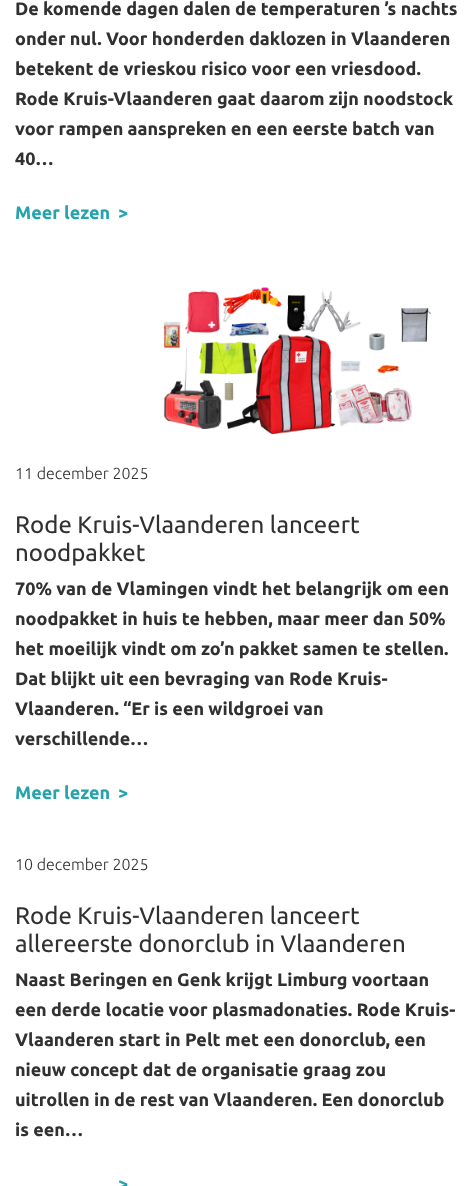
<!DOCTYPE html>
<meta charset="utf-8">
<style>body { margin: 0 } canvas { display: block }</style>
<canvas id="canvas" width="474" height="1186"></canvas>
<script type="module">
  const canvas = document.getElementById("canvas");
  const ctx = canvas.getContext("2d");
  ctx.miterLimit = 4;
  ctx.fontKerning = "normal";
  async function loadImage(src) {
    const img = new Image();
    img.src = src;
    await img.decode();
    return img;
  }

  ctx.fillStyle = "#ffffff";
  ctx.fillRect(0, 0, 474, 1186);
  ctx.font = "bold 18px Ubuntu";
  ctx.fillStyle = "#313131";
  ctx.fillText("De komende dagen dalen de temperaturen ’s nachts", 15, 15);
  ctx.fillText("onder nul. Voor honderden daklozen in Vlaanderen", 15, 45);
  ctx.fillText("betekent de vrieskou risico voor een vriesdood.", 15, 75);
  ctx.fillText("Rode Kruis-Vlaanderen gaat daarom zijn noodstock", 15, 105);
  ctx.fillText("voor rampen aanspreken en een eerste batch van", 15, 135);
  ctx.fillText("40…", 15, 165);
  ctx.fillStyle = "#27a3ac";
  ctx.fillText("Meer lezen", 15, 219);
  ctx.fillText(">", 118, 219);
  ctx.drawImage(await loadImage("img1.png"), 163, 287, 268, 148);
  ctx.font = "300 16px Ubuntu";
  ctx.fillStyle = "#313131";
  ctx.fillText("11 december 2025", 15, 479);
  ctx.font = "24px Ubuntu";
  ctx.fillText("Rode Kruis-Vlaanderen lanceert", 15, 533);
  ctx.fillText("noodpakket", 15, 561);
  ctx.font = "bold 18px Ubuntu";
  ctx.fillText("70% van de Vlamingen vindt het belangrijk om een", 15, 595);
  ctx.fillText("noodpakket in huis te hebben, maar meer dan 50%", 15, 625);
  ctx.fillText("het moeilijk vindt om zo’n pakket samen te stellen.", 15, 655);
  ctx.fillText("Dat blijkt uit een bevraging van Rode Kruis-", 15, 685);
  ctx.fillText("Vlaanderen. “Er is een wildgroei van", 15, 715);
  ctx.fillText("verschillende…", 15, 745);
  ctx.fillStyle = "#27a3ac";
  ctx.fillText("Meer lezen", 15, 799);
  ctx.fillText(">", 118, 799);
  ctx.font = "300 16px Ubuntu";
  ctx.fillStyle = "#313131";
  ctx.fillText("10 december 2025", 15, 870);
  ctx.font = "24px Ubuntu";
  ctx.fillText("Rode Kruis-Vlaanderen lanceert", 15, 924);
  ctx.fillText("allereerste donorclub in Vlaanderen", 15, 952);
  ctx.font = "bold 18px Ubuntu";
  ctx.fillText("Naast Beringen en Genk krijgt Limburg voortaan", 15, 986);
  ctx.fillText("een derde locatie voor plasmadonaties. Rode Kruis-", 15, 1016);
  ctx.fillText("Vlaanderen start in Pelt met een donorclub, een", 15, 1046);
  ctx.fillText("nieuw concept dat de organisatie graag zou", 15, 1076);
  ctx.fillText("uitrollen in de rest van Vlaanderen. Een donorclub", 15, 1106);
  ctx.fillText("is een…", 15, 1136);
  ctx.fillStyle = "#27a3ac";
  ctx.fillText(">", 118, 1190);
</script>
